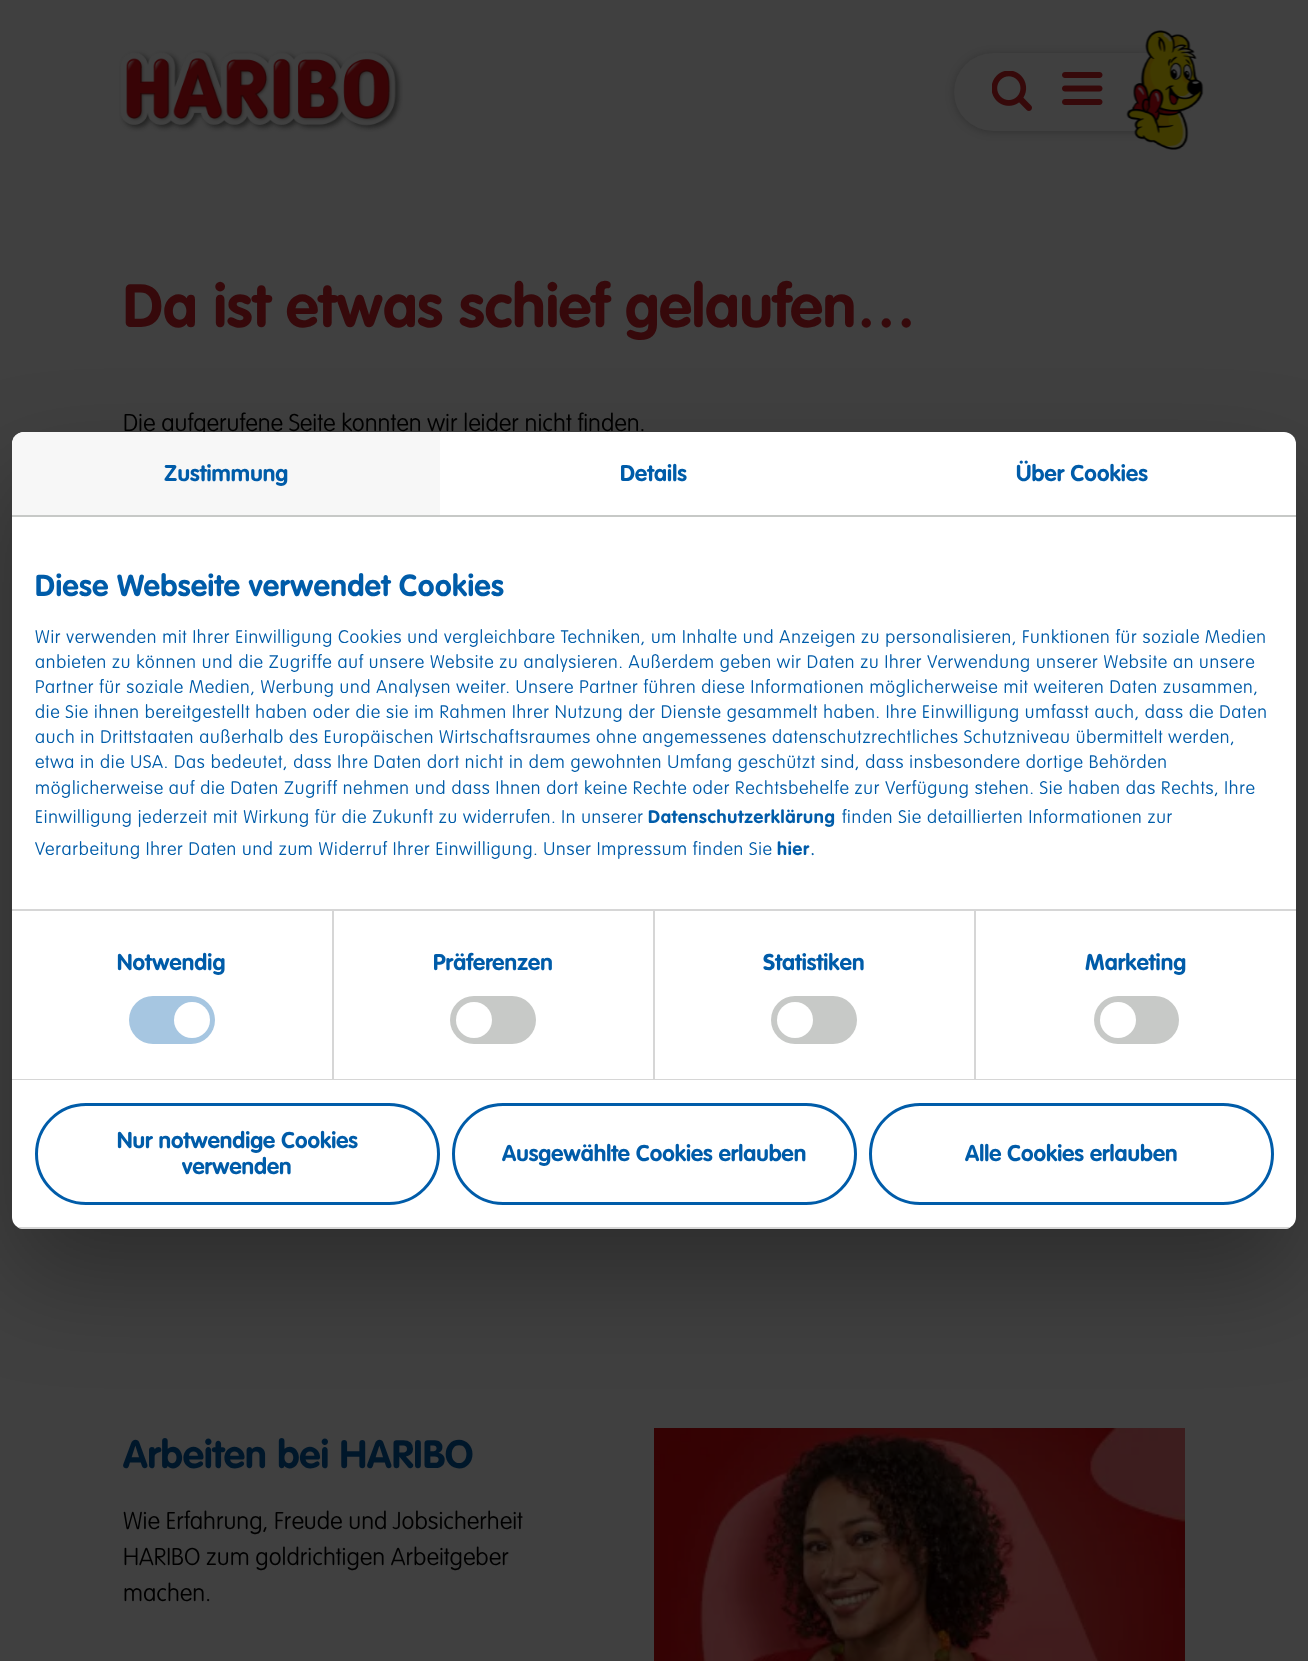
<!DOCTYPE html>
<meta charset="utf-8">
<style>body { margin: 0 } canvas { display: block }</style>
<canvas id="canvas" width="1308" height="1661"></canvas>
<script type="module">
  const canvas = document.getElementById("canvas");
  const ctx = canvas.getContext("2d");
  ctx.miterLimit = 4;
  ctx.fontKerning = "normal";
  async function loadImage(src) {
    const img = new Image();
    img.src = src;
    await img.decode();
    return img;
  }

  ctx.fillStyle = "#404040";
  ctx.fillRect(0, 0, 1308, 1661);
  ctx.drawImage(await loadImage("img1.png"), 119, 50, 284, 82);
  ctx.fillStyle = "rgba(0, 0, 0, 0.22)";
  ctx.filter = "blur(4.5px)";
  ctx.beginPath();
  ctx.roundRect(954, 54, 231, 78, 39);
  ctx.fill();
  ctx.filter = "none";
  ctx.fillStyle = "#404040";
  ctx.beginPath();
  ctx.roundRect(954, 53, 231, 78, 39);
  ctx.fill();
  ctx.drawImage(await loadImage("img2.png"), 992, 71, 40, 40);
  ctx.drawImage(await loadImage("img3.png"), 1062, 72, 41, 33);
  ctx.drawImage(await loadImage("img4.png"), 1126, 30, 78, 120);
  ctx.font = "bold 60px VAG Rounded";
  ctx.fillStyle = "#36090b";
  ctx.fillText("Da ist etwas schief gelaufen…", 123, 327);
  ctx.font = "100 24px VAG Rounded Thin";
  ctx.fillStyle = "#000000";
  ctx.fillText("Die aufgerufene Seite konnten wir leider nicht finden.", 123, 431);
  ctx.font = "bold 39px VAG Rounded";
  ctx.fillStyle = "#00172a";
  ctx.fillText("Arbeiten bei HARIBO", 123, 1468);
  ctx.font = "100 24px VAG Rounded Thin";
  ctx.fillStyle = "#000000";
  ctx.fillText("Wie Erfahrung, Freude und Jobsicherheit", 123, 1529);
  ctx.fillText("HARIBO zum goldrichtigen Arbeitgeber", 123, 1565);
  ctx.fillText("machen.", 123, 1601);
  ctx.drawImage(await loadImage("img5.png"), 654, 1428, 531, 233);
  ctx.fillStyle = "rgba(0, 0, 0, 0.3)";
  ctx.filter = "blur(51px)";
  ctx.beginPath();
  ctx.roundRect(12, 480, 1284, 797, 12);
  ctx.fill();
  ctx.filter = "none";
  ctx.fillStyle = "#ffffff";
  ctx.beginPath();
  ctx.roundRect(12, 432, 1284, 797, 12);
  ctx.fill();
  ctx.fillStyle = "#c7c9c7";
  ctx.fillRect(12, 515, 1284, 2);
  ctx.fillStyle = "#f7f7f7";
  ctx.beginPath();
  ctx.roundRect(12, 432, 428, 83, [12, 0, 0, 0]);
  ctx.fill();
  ctx.letterSpacing = "0.1px";
  ctx.font = "bold 22.5px VAG Rounded";
  ctx.fillStyle = "#005ca9";
  ctx.fillText("Zustimmung", 164, 481);
  ctx.fillText("Details", 620, 481);
  ctx.fillText("Über Cookies", 1016, 481);
  ctx.fillStyle = "#d6d6d6";
  ctx.fillRect(12, 909, 1284, 2);
  ctx.letterSpacing = "0.4px";
  ctx.font = "bold 30px VAG Rounded";
  ctx.fillStyle = "#005ca9";
  ctx.fillText("Diese Webseite verwendet Cookies", 35, 596);
  ctx.letterSpacing = "0.75px";
  ctx.font = "100 18px VAG Rounded Thin";
  ctx.fillText("Wir verwenden mit Ihrer Einwilligung Cookies und vergleichbare Techniken, um Inhalte und Anzeigen zu personalisieren, Funktionen für soziale Medien", 35, 643);
  ctx.fillText("anbieten zu können und die Zugriffe auf unsere Website zu analysieren. Außerdem geben wir Daten zu Ihrer Verwendung unserer Website an unsere", 35, 668);
  ctx.fillText("Partner für soziale Medien, Werbung und Analysen weiter. Unsere Partner führen diese Informationen möglicherweise mit weiteren Daten zusammen,", 35, 693);
  ctx.fillText("die Sie ihnen bereitgestellt haben oder die sie im Rahmen Ihrer Nutzung der Dienste gesammelt haben. Ihre Einwilligung umfasst auch, dass die Daten", 35, 718);
  ctx.fillText("auch in Drittstaaten außerhalb des Europäischen Wirtschaftsraumes ohne angemessenes datenschutzrechtliches Schutzniveau übermittelt werden,", 35, 743);
  ctx.fillText("etwa in die USA. Das bedeutet, dass Ihre Daten dort nicht in dem gewohnten Umfang geschützt sind, dass insbesondere dortige Behörden", 35, 768);
  ctx.fillText("möglicherweise auf die Daten Zugriff nehmen und dass Ihnen dort keine Rechte oder Rechtsbehelfe zur Verfügung stehen. Sie haben das Rechts, Ihre", 35, 794);
  ctx.fillText("Einwilligung jederzeit mit Wirkung für die Zukunft zu widerrufen. In unserer", 35, 823);
  ctx.font = "bold 18px VAG Rounded";
  ctx.fillText("Datenschutzerklärung", 648, 823);
  ctx.font = "100 18px VAG Rounded Thin";
  ctx.fillText("finden Sie detaillierten Informationen zur", 842, 823);
  ctx.fillText("Verarbeitung Ihrer Daten und zum Widerruf Ihrer Einwilligung. Unser Impressum finden Sie", 35, 855);
  ctx.font = "bold 18px VAG Rounded";
  ctx.fillText("hier", 777, 855);
  ctx.font = "100 22.5px VAG Rounded Thin";
  ctx.fillText(".", 810, 855);
  ctx.fillStyle = "#d6d6d6";
  ctx.fillRect(12, 1079, 1284, 1);
  ctx.fillRect(332, 911, 2, 168);
  ctx.letterSpacing = "0.1px";
  ctx.font = "bold 22.5px VAG Rounded";
  ctx.fillStyle = "#005ca9";
  ctx.fillText("Notwendig", 117, 970);
  ctx.fillStyle = "#a6c6e1";
  ctx.beginPath();
  ctx.roundRect(129, 996, 86, 48, 24);
  ctx.fill();
  ctx.fillStyle = "#ffffff";
  ctx.beginPath();
  ctx.arc(192, 1020, 18, 0, Math.PI * 2);
  ctx.fill();
  ctx.fillStyle = "#d6d6d6";
  ctx.fillRect(653, 911, 2, 168);
  ctx.fillStyle = "#005ca9";
  ctx.fillText("Präferenzen", 433, 970);
  ctx.fillStyle = "#c7c9c7";
  ctx.beginPath();
  ctx.roundRect(450, 996, 86, 48, 24);
  ctx.fill();
  ctx.fillStyle = "#ffffff";
  ctx.beginPath();
  ctx.arc(474, 1020, 18, 0, Math.PI * 2);
  ctx.fill();
  ctx.fillStyle = "#d6d6d6";
  ctx.fillRect(974, 911, 2, 168);
  ctx.fillStyle = "#005ca9";
  ctx.fillText("Statistiken", 763, 970);
  ctx.fillStyle = "#c7c9c7";
  ctx.beginPath();
  ctx.roundRect(771, 996, 86, 48, 24);
  ctx.fill();
  ctx.fillStyle = "#ffffff";
  ctx.beginPath();
  ctx.arc(795, 1020, 18, 0, Math.PI * 2);
  ctx.fill();
  ctx.fillStyle = "#005ca9";
  ctx.fillText("Marketing", 1085, 970);
  ctx.fillStyle = "#c7c9c7";
  ctx.beginPath();
  ctx.roundRect(1094, 996, 85, 48, 24);
  ctx.fill();
  ctx.fillStyle = "#ffffff";
  ctx.beginPath();
  ctx.arc(1118, 1020, 18, 0, Math.PI * 2);
  ctx.fill();
  ctx.save();
  ctx.beginPath();
  ctx.roundRect(12, 432, 1284, 797, 12);
  ctx.clip();
  ctx.fillStyle = "#d6d6d6";
  ctx.fillRect(12, 1227, 1284, 2);
  ctx.restore();
  ctx.beginPath();
  ctx.roundRect(36.5, 1104.5, 402, 99, 49.5);
  ctx.strokeStyle = "#005ca9";
  ctx.lineWidth = 3;
  ctx.stroke();
  ctx.letterSpacing = "0px";
  ctx.fillStyle = "#005ca9";
  ctx.fillText("Nur notwendige Cookies", 117, 1148);
  ctx.fillText("verwenden", 182, 1174);
  ctx.beginPath();
  ctx.roundRect(453.5, 1104.5, 402, 99, 49.5);
  ctx.stroke();
  ctx.fillText("Ausgewählte Cookies erlauben", 502, 1161);
  ctx.beginPath();
  ctx.roundRect(870.5, 1104.5, 402, 99, 49.5);
  ctx.stroke();
  ctx.fillText("Alle Cookies erlauben", 965, 1161);
</script>
